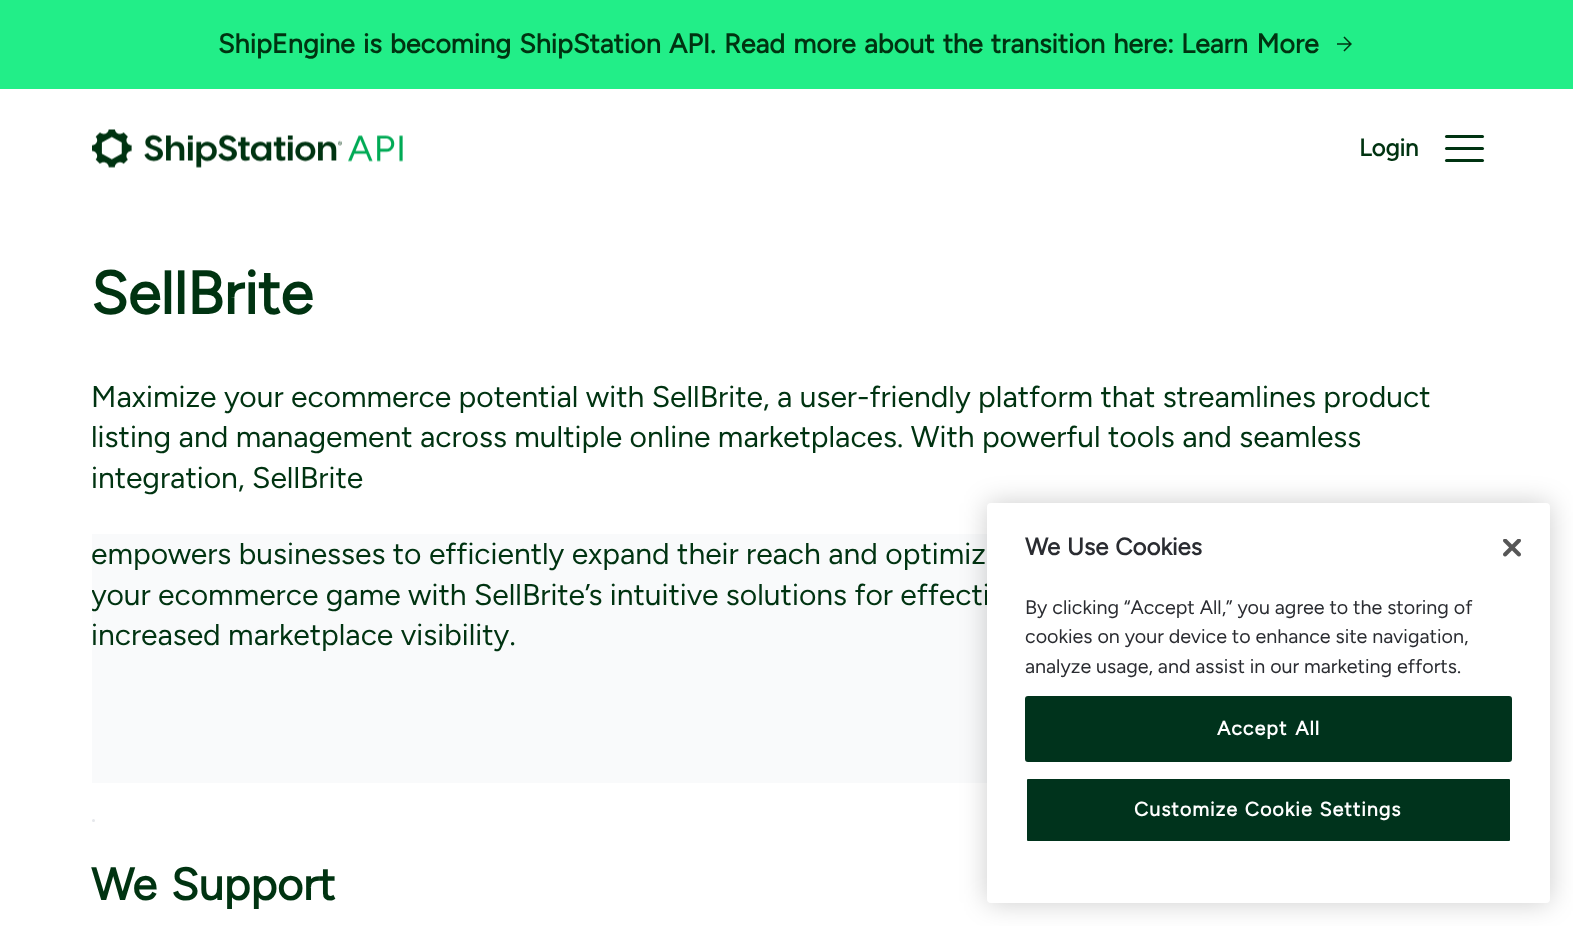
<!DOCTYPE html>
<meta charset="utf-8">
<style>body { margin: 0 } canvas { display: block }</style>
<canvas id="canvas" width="1573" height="926"></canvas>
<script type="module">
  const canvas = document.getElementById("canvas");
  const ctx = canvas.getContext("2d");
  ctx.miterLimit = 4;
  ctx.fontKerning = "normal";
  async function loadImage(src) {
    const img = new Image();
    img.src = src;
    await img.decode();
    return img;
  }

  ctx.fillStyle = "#ffffff";
  ctx.fillRect(0, 0, 1573, 926);
  ctx.fillStyle = "#22ee88";
  ctx.fillRect(0, 0, 1573, 89);
  ctx.wordSpacing = "1.5px";
  ctx.font = "bold 27px Figtree";
  ctx.fillStyle = "#003311";
  ctx.fillText("ShipEngine is becoming ShipStation API. Read more about the transition here:", 218, 53);
  ctx.wordSpacing = "2px";
  ctx.fillText("Learn More", 1181, 53);
  ctx.drawImage(await loadImage("img1.png"), 1337, 36, 15, 16);
  ctx.drawImage(await loadImage("img2.png"), 92, 129, 311, 39);
  ctx.wordSpacing = "0px";
  ctx.font = "bold 24px Figtree";
  ctx.fillText("Login", 1359, 156);
  ctx.beginPath();
  ctx.roundRect(1445, 135, 39, 3, 1.5);
  ctx.fill();
  ctx.beginPath();
  ctx.roundRect(1445, 147, 39, 3, 1.5);
  ctx.fill();
  ctx.beginPath();
  ctx.roundRect(1445, 159, 39, 3, 1.5);
  ctx.fill();
  ctx.font = "bold 60px Figtree";
  ctx.fillText("SellBrite", 91, 314);
  ctx.font = "30px Figtree";
  ctx.fillText("Maximize your ecommerce potential with SellBrite, a user-friendly platform that streamlines product", 91, 407);
  ctx.fillText("listing and management across multiple online marketplaces. With powerful tools and seamless", 91, 447);
  ctx.fillText("integration, SellBrite", 91, 488);
  ctx.fillStyle = "#f9fafb";
  ctx.fillRect(92, 534, 895, 249);
  ctx.fillStyle = "#003311";
  ctx.fillText("empowers businesses to efficiently expand their reach and optimiz", 91, 564);
  ctx.save();
  ctx.beginPath();
  ctx.rect(92, 534, 1392, 249);
  ctx.clip();
  ctx.fillText("your ecommerce game with SellBrite’s intuitive solutions for effecti", 91, 605);
  ctx.restore();
  ctx.fillText("increased marketplace visibility.", 91, 645);
  ctx.fillStyle = "#e5e7eb";
  ctx.beginPath();
  ctx.arc(93.5, 820.5, 1.5, 0, Math.PI * 2);
  ctx.fill();
  ctx.wordSpacing = "3px";
  ctx.font = "bold 45px Figtree";
  ctx.fillStyle = "#003311";
  ctx.fillText("We Support", 91, 900);
  ctx.fillStyle = "rgba(0, 0, 0, 0.2)";
  ctx.filter = "blur(13.5px)";
  ctx.beginPath();
  ctx.roundRect(987, 503, 563, 400, 4);
  ctx.fill();
  ctx.filter = "none";
  ctx.fillStyle = "#ffffff";
  ctx.beginPath();
  ctx.roundRect(987, 503, 563, 400, 4);
  ctx.fill();
  ctx.wordSpacing = "1px";
  ctx.font = "bold 24px Figtree";
  ctx.fillStyle = "#2a2c31";
  ctx.fillText("We Use Cookies", 1025, 555);
  ctx.wordSpacing = "0px";
  ctx.font = "19.7px Figtree";
  ctx.fillText("By clicking “Accept All,” you agree to the storing of", 1025, 614);
  ctx.fillText("cookies on your device to enhance site navigation,", 1025, 643);
  ctx.fillText("analyze usage, and assist in our marketing efforts.", 1025, 673);
  ctx.drawImage(await loadImage("img3.png"), 1503, 539, 18, 18);
  ctx.fillStyle = "#00331c";
  ctx.beginPath();
  ctx.roundRect(1026, 697, 485, 64, 2);
  ctx.fill();
  ctx.strokeStyle = "#00331c";
  ctx.lineWidth = 2;
  ctx.stroke();
  ctx.letterSpacing = "1px";
  ctx.wordSpacing = "2px";
  ctx.font = "bold 19.7px Figtree";
  ctx.fillStyle = "#ffffff";
  ctx.fillText("Accept All", 1217, 735);
  ctx.fillStyle = "#00331c";
  ctx.beginPath();
  ctx.roundRect(1026, 778, 485, 64, 2);
  ctx.fill();
  ctx.strokeStyle = "#ffffff";
  ctx.stroke();
  ctx.wordSpacing = "1px";
  ctx.fillStyle = "#ffffff";
  ctx.fillText("Customize Cookie Settings", 1134, 816);
</script>
